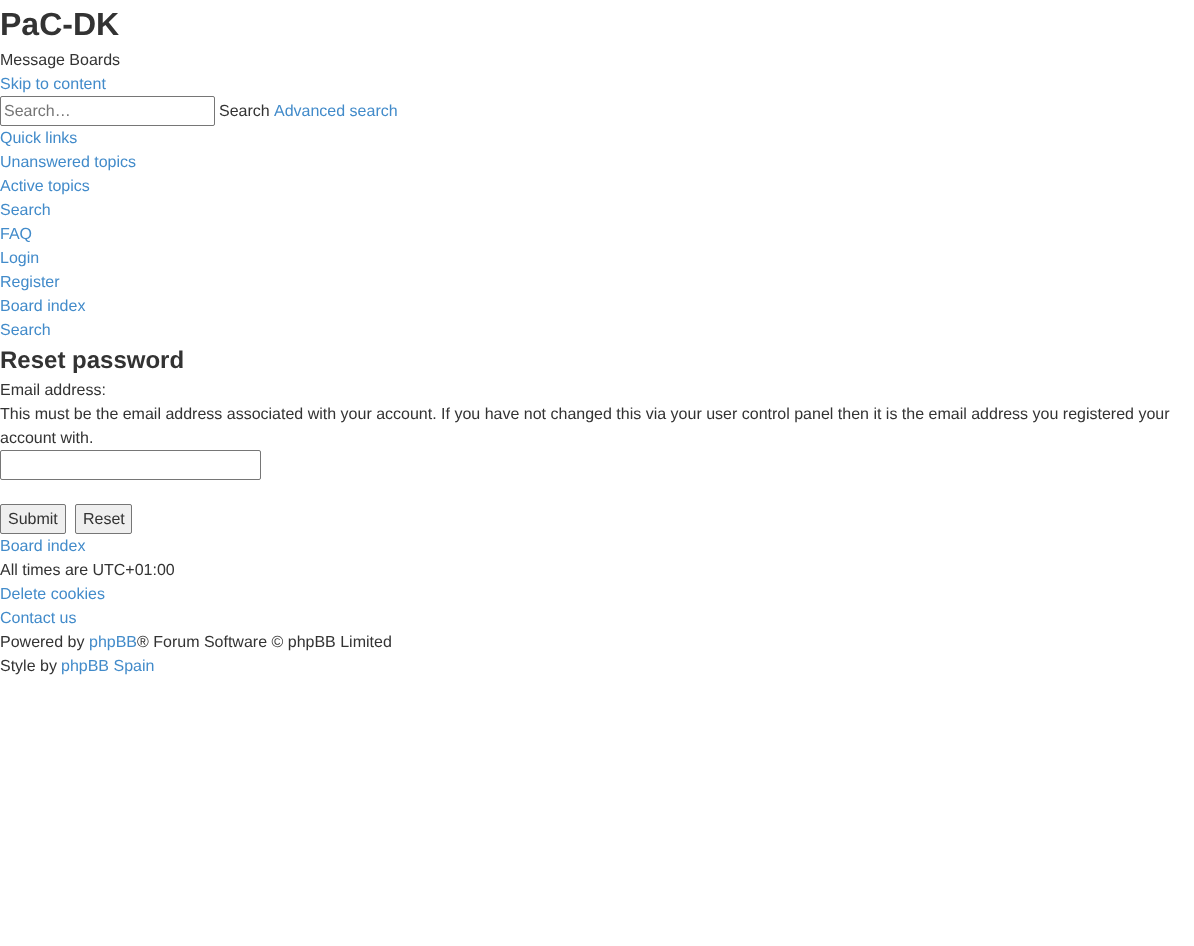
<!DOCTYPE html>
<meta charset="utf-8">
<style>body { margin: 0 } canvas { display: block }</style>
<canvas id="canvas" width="1194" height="946"></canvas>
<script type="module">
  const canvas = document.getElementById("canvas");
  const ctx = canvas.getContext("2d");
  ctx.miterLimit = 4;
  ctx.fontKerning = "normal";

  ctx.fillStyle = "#ffffff";
  ctx.fillRect(0, 0, 1194, 946);
  ctx.font = "bold 32px Liberation Sans";
  ctx.fillStyle = "#333333";
  ctx.fillText("PaC-DK", 0, 35);
  ctx.font = "16px Liberation Sans";
  ctx.fillText("Message Boards", 0, 65);
  ctx.fillStyle = "#428bca";
  ctx.fillText("Skip to content", 0, 89);
  ctx.beginPath();
  ctx.roundRect(0.5, 96.5, 214, 29, 1.5);
  ctx.strokeStyle = "#767676";
  ctx.stroke();
  ctx.fillStyle = "#757575";
  ctx.fillText("Search…", 4, 116);
  ctx.fillStyle = "#333333";
  ctx.fillText("Search", 219, 116);
  ctx.fillStyle = "#428bca";
  ctx.fillText("Advanced search", 274, 116);
  ctx.fillText("Quick links", 0, 143);
  ctx.fillText("Unanswered topics", 0, 167);
  ctx.fillText("Active topics", 0, 191);
  ctx.fillText("Search", 0, 215);
  ctx.fillText("FAQ", 0, 239);
  ctx.fillText("Login", 0, 263);
  ctx.fillText("Register", 0, 287);
  ctx.fillText("Board index", 0, 311);
  ctx.fillText("Search", 0, 335);
  ctx.font = "bold 24px Liberation Sans";
  ctx.fillStyle = "#333333";
  ctx.fillText("Reset password", 0, 368);
  ctx.font = "16px Liberation Sans";
  ctx.fillText("Email address:", 0, 395);
  ctx.fillText("This must be the email address associated with your account. If you have not changed this via your user control panel then it is the email address you registered your", 0, 419);
  ctx.fillText("account with.", 0, 443);
  ctx.beginPath();
  ctx.roundRect(0.5, 450.5, 260, 29, 1.5);
  ctx.stroke();
  ctx.fillStyle = "#efefef";
  ctx.beginPath();
  ctx.roundRect(0.5, 504.5, 65, 29, 1.5);
  ctx.fill();
  ctx.stroke();
  ctx.fillStyle = "#333333";
  ctx.fillText("Submit", 8, 524);
  ctx.fillStyle = "#efefef";
  ctx.beginPath();
  ctx.roundRect(75.5, 504.5, 56, 29, 1.5);
  ctx.fill();
  ctx.stroke();
  ctx.fillStyle = "#333333";
  ctx.fillText("Reset", 83, 524);
  ctx.fillStyle = "#428bca";
  ctx.fillText("Board index", 0, 551);
  ctx.fillStyle = "#333333";
  ctx.fillText("All times are UTC+01:00", 0, 575);
  ctx.fillStyle = "#428bca";
  ctx.fillText("Delete cookies", 0, 599);
  ctx.fillText("Contact us", 0, 623);
  ctx.fillStyle = "#333333";
  ctx.fillText("Powered by", 0, 647);
  ctx.fillStyle = "#428bca";
  ctx.fillText("phpBB", 89, 647);
  ctx.fillStyle = "#333333";
  ctx.fillText("® Forum Software © phpBB Limited", 137, 647);
  ctx.fillText("Style by", 0, 671);
  ctx.fillStyle = "#428bca";
  ctx.fillText("phpBB Spain", 61, 671);
</script>
